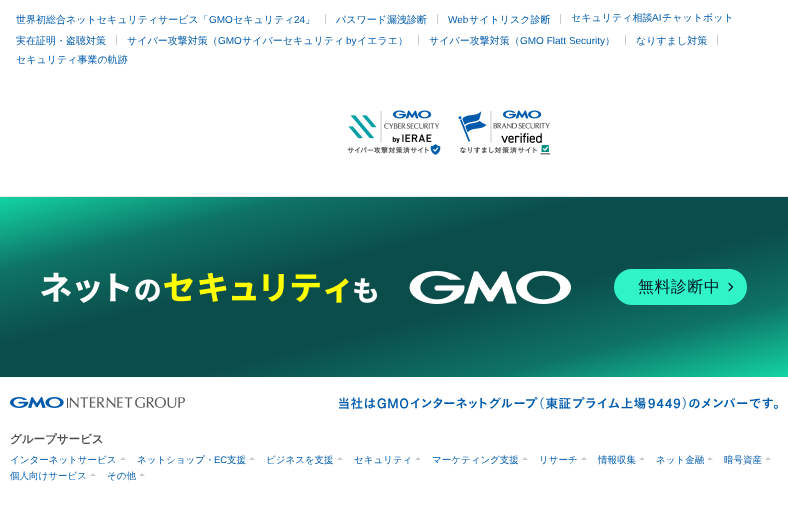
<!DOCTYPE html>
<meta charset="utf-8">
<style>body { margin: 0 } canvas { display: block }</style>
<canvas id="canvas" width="788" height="506"></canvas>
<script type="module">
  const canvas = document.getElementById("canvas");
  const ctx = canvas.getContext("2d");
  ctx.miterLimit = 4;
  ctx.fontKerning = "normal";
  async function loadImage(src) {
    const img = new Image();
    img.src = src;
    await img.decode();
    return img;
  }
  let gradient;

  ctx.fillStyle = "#ffffff";
  ctx.fillRect(0, 0, 788, 506);
  ctx.font = "500 10px WenQuanYi Zen Hei";
  ctx.fillStyle = "#005bac";
  ctx.fillText("世界初総合ネットセキュリティサービス「", 16, 23);
  ctx.font = "10px Liberation Sans";
  ctx.fillText("GMO", 209, 23);
  ctx.font = "500 10px WenQuanYi Zen Hei";
  ctx.fillText("セキュリティ", 233, 23);
  ctx.font = "10px Liberation Sans";
  ctx.fillText("24", 294, 23);
  ctx.font = "500 10px WenQuanYi Zen Hei";
  ctx.fillText("」", 305, 23);
  ctx.fillStyle = "#cccccc";
  ctx.fillRect(325, 14, 1, 10);
  ctx.fillStyle = "#005bac";
  ctx.fillText("パスワード漏洩診断", 336, 23);
  ctx.fillStyle = "#cccccc";
  ctx.fillRect(437, 14, 1, 10);
  ctx.font = "10px Liberation Sans";
  ctx.fillStyle = "#005bac";
  ctx.fillText("Web", 448, 23);
  ctx.font = "500 10px WenQuanYi Zen Hei";
  ctx.fillText("サイトリスク診断", 469, 23);
  ctx.fillStyle = "#cccccc";
  ctx.fillRect(560, 14, 1, 10);
  ctx.fillStyle = "#005bac";
  ctx.fillText("セキュリティ相談", 571, 21);
  ctx.font = "10px Liberation Sans";
  ctx.fillText("AI", 652, 21);
  ctx.font = "500 10px WenQuanYi Zen Hei";
  ctx.fillText("チャットボット", 662, 21);
  ctx.fillText("実在証明・盗聴対策", 16, 44);
  ctx.fillStyle = "#cccccc";
  ctx.fillRect(116, 35, 1, 10);
  ctx.fillStyle = "#005bac";
  ctx.fillText("サイバー攻撃対策（", 127, 44);
  ctx.font = "10px Liberation Sans";
  ctx.fillText("GMO", 218, 44);
  ctx.font = "500 10px WenQuanYi Zen Hei";
  ctx.fillText("サイバーセキュリティ", 242, 44);
  ctx.font = "10px Liberation Sans";
  ctx.fillText("by", 346, 44);
  ctx.font = "500 10px WenQuanYi Zen Hei";
  ctx.fillText("イエラエ）", 357, 44);
  ctx.fillStyle = "#cccccc";
  ctx.fillRect(418, 35, 1, 10);
  ctx.fillStyle = "#005bac";
  ctx.fillText("サイバー攻撃対策（", 429, 44);
  ctx.font = "10px Liberation Sans";
  ctx.fillText("GMO Flatt Security", 520, 44);
  ctx.font = "500 10px WenQuanYi Zen Hei";
  ctx.fillText("）", 605, 44);
  ctx.fillStyle = "#cccccc";
  ctx.fillRect(625, 35, 1, 10);
  ctx.fillStyle = "#005bac";
  ctx.fillText("なりすまし対策", 636, 44);
  ctx.fillStyle = "#cccccc";
  ctx.fillRect(717, 35, 1, 10);
  ctx.fillStyle = "#005bac";
  ctx.fillText("セキュリティ事業の軌跡", 16, 63);
  ctx.drawImage(await loadImage("img1.png"), 347, 110, 94, 45);
  ctx.drawImage(await loadImage("img2.png"), 458, 110, 92, 45);
  ctx.fillStyle = "#eaeaea";
  ctx.fillRect(0, 196, 788, 1);
  gradient = ctx.createLinearGradient(350, 110, 438, 464);
  gradient.addColorStop(0, "#13d4a5");
  gradient.addColorStop(0.2, "#0e7365");
  gradient.addColorStop(0.4, "#0b4d4b");
  gradient.addColorStop(0.6, "#0b4d4b");
  gradient.addColorStop(0.8, "#0e7365");
  gradient.addColorStop(1, "#13d4a5");
  ctx.fillStyle = gradient;
  ctx.fillRect(0, 197, 788, 180);
  ctx.drawImage(await loadImage("img3.png"), 41, 271, 530, 33);
  ctx.fillStyle = "#30f4c5";
  ctx.beginPath();
  ctx.roundRect(614, 269, 133, 36, 18);
  ctx.fill();
  ctx.letterSpacing = "0.5px";
  ctx.font = "500 16px WenQuanYi Zen Hei";
  ctx.fillStyle = "#021725";
  ctx.fillText("無料診断中", 638, 292);
  ctx.beginPath();
  ctx.moveTo(729, 283.5);
  ctx.lineTo(732.5, 287);
  ctx.lineTo(729, 290.5);
  ctx.strokeStyle = "#021725";
  ctx.lineWidth = 1.2;
  ctx.lineCap = "round";
  ctx.lineJoin = "round";
  ctx.stroke();
  ctx.drawImage(await loadImage("img4.png"), 10, 397, 175, 11);
  ctx.drawImage(await loadImage("img5.png"), 339, 397, 439, 12);
  ctx.letterSpacing = "0px";
  ctx.font = "bold 11.5px WenQuanYi Zen Hei";
  ctx.fillStyle = "#4d4d4d";
  ctx.fillText("グループサービス", 10, 443);
  ctx.font = "500 9.5px WenQuanYi Zen Hei";
  ctx.fillStyle = "#005bac";
  ctx.fillText("インターネットサービス", 10, 463);
  ctx.fillStyle = "#cccccc";
  ctx.beginPath();
  ctx.moveTo(126, 460);
  ctx.lineTo(120, 460);
  ctx.lineTo(123, 457);
  ctx.closePath();
  ctx.fill();
  ctx.fillStyle = "#005bac";
  ctx.fillText("ネットショップ・", 137, 463);
  ctx.font = "9.5px Liberation Sans";
  ctx.fillText("EC", 214, 463);
  ctx.font = "500 9.5px WenQuanYi Zen Hei";
  ctx.fillText("支援", 227, 463);
  ctx.fillStyle = "#cccccc";
  ctx.beginPath();
  ctx.moveTo(255, 460);
  ctx.lineTo(249, 460);
  ctx.lineTo(252, 457);
  ctx.closePath();
  ctx.fill();
  ctx.fillStyle = "#005bac";
  ctx.fillText("ビジネスを支援", 266, 463);
  ctx.fillStyle = "#cccccc";
  ctx.beginPath();
  ctx.moveTo(343, 460);
  ctx.lineTo(337, 460);
  ctx.lineTo(340, 457);
  ctx.closePath();
  ctx.fill();
  ctx.fillStyle = "#005bac";
  ctx.fillText("セキュリティ", 354, 463);
  ctx.fillStyle = "#cccccc";
  ctx.beginPath();
  ctx.moveTo(421, 460);
  ctx.lineTo(415, 460);
  ctx.lineTo(418, 457);
  ctx.closePath();
  ctx.fill();
  ctx.fillStyle = "#005bac";
  ctx.fillText("マーケティング支援", 432, 463);
  ctx.fillStyle = "#cccccc";
  ctx.beginPath();
  ctx.moveTo(528, 460);
  ctx.lineTo(522, 460);
  ctx.lineTo(525, 457);
  ctx.closePath();
  ctx.fill();
  ctx.fillStyle = "#005bac";
  ctx.fillText("リサーチ", 539, 463);
  ctx.fillStyle = "#cccccc";
  ctx.beginPath();
  ctx.moveTo(587, 460);
  ctx.lineTo(581, 460);
  ctx.lineTo(584, 457);
  ctx.closePath();
  ctx.fill();
  ctx.fillStyle = "#005bac";
  ctx.fillText("情報収集", 598, 463);
  ctx.fillStyle = "#cccccc";
  ctx.beginPath();
  ctx.moveTo(645, 460);
  ctx.lineTo(639, 460);
  ctx.lineTo(642, 457);
  ctx.closePath();
  ctx.fill();
  ctx.fillStyle = "#005bac";
  ctx.fillText("ネット金融", 656, 463);
  ctx.fillStyle = "#cccccc";
  ctx.beginPath();
  ctx.moveTo(713, 460);
  ctx.lineTo(707, 460);
  ctx.lineTo(710, 457);
  ctx.closePath();
  ctx.fill();
  ctx.fillStyle = "#005bac";
  ctx.fillText("暗号資産", 724, 463);
  ctx.fillStyle = "#cccccc";
  ctx.beginPath();
  ctx.moveTo(771, 460);
  ctx.lineTo(765, 460);
  ctx.lineTo(768, 457);
  ctx.closePath();
  ctx.fill();
  ctx.fillStyle = "#005bac";
  ctx.fillText("個人向けサービス", 10, 479);
  ctx.fillText("その他", 107, 479);
  ctx.fillStyle = "#cccccc";
  ctx.beginPath();
  ctx.moveTo(96, 476);
  ctx.lineTo(90, 476);
  ctx.lineTo(93, 473);
  ctx.closePath();
  ctx.moveTo(145, 476);
  ctx.lineTo(139, 476);
  ctx.lineTo(142, 473);
  ctx.closePath();
  ctx.fill();
</script>
